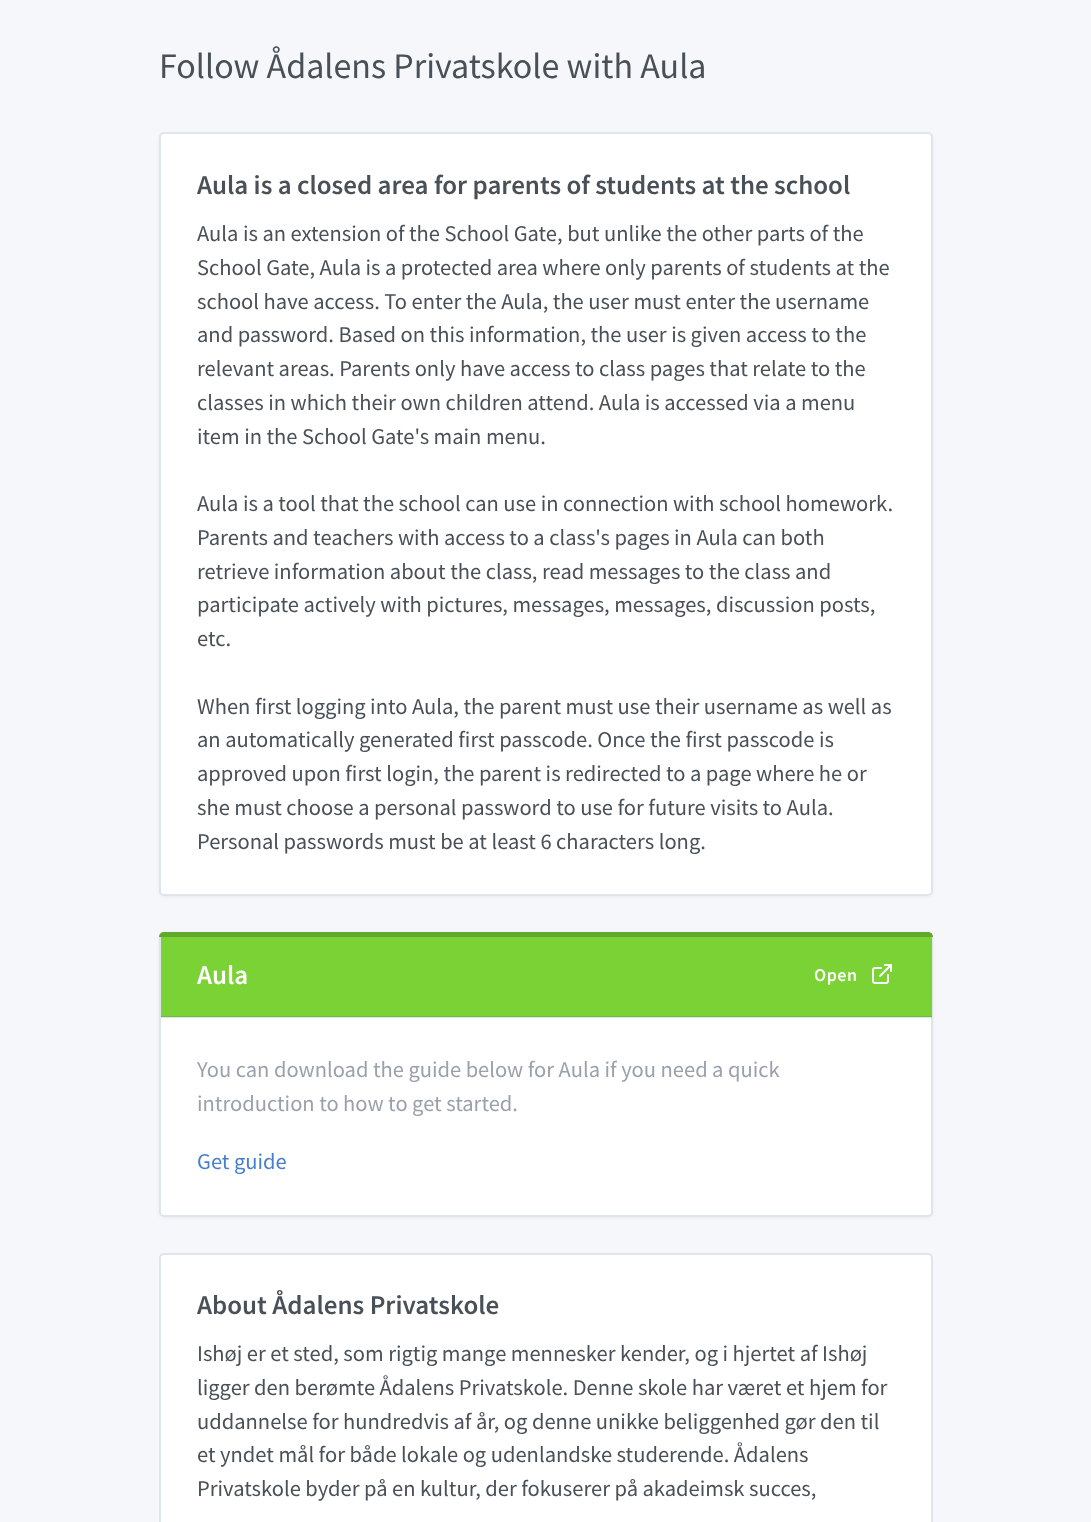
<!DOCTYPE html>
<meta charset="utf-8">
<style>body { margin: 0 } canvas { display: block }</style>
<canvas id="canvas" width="1091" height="1522"></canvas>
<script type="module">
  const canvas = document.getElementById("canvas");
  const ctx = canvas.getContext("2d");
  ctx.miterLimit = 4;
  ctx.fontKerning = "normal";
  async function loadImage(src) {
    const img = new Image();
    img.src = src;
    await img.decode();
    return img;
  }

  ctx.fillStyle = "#f5f7fb";
  ctx.fillRect(0, 0, 1091, 1522);
  ctx.font = "36px Source Sans Pro";
  ctx.fillStyle = "#495057";
  ctx.fillText("Follow Ådalens Privatskole with Aula", 159, 78);
  ctx.fillStyle = "rgba(0, 0, 0, 0.05)";
  ctx.filter = "blur(1.5px)";
  ctx.beginPath();
  ctx.roundRect(159, 134, 774, 763, 5);
  ctx.fill();
  ctx.filter = "none";
  ctx.fillStyle = "#ffffff";
  ctx.beginPath();
  ctx.roundRect(159, 132, 774, 764, 5);
  ctx.fill();
  ctx.beginPath();
  ctx.roundRect(160, 133, 772, 762, 4);
  ctx.strokeStyle = "rgba(0, 40, 100, 0.12)";
  ctx.lineWidth = 2;
  ctx.stroke();
  ctx.font = "600 27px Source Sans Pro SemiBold";
  ctx.fillStyle = "#495057";
  ctx.fillText("Aula is a closed area for parents of students at the school", 197, 194);
  ctx.font = "22.5px Source Sans Pro";
  ctx.fillText("Aula is an extension of the School Gate, but unlike the other parts of the", 197, 241);
  ctx.fillText("School Gate, Aula is a protected area where only parents of students at the", 197, 275);
  ctx.fillText("school have access. To enter the Aula, the user must enter the username", 197, 309);
  ctx.fillText("and password. Based on this information, the user is given access to the", 197, 342);
  ctx.fillText("relevant areas. Parents only have access to class pages that relate to the", 197, 376);
  ctx.fillText("classes in which their own children attend. Aula is accessed via a menu", 197, 410);
  ctx.fillText("item in the School Gate's main menu.", 197, 444);
  ctx.fillText("Aula is a tool that the school can use in connection with school homework.", 197, 511);
  ctx.fillText("Parents and teachers with access to a class's pages in Aula can both", 197, 545);
  ctx.fillText("retrieve information about the class, read messages to the class and", 197, 579);
  ctx.fillText("participate actively with pictures, messages, messages, discussion posts,", 197, 612);
  ctx.fillText("etc.", 197, 646);
  ctx.fillText("When first logging into Aula, the parent must use their username as well as", 197, 714);
  ctx.fillText("an automatically generated first passcode. Once the first passcode is", 197, 747);
  ctx.fillText("approved upon first login, the parent is redirected to a page where he or", 197, 781);
  ctx.fillText("she must choose a personal password to use for future visits to Aula.", 197, 815);
  ctx.fillText("Personal passwords must be at least 6 characters long.", 197, 849);
  ctx.fillStyle = "rgba(0, 0, 0, 0.05)";
  ctx.filter = "blur(1.5px)";
  ctx.beginPath();
  ctx.roundRect(159, 933, 774, 285, 5);
  ctx.fill();
  ctx.filter = "none";
  ctx.fillStyle = "#ffffff";
  ctx.beginPath();
  ctx.roundRect(159, 932, 774, 285, 5);
  ctx.fill();
  ctx.beginPath();
  ctx.roundRect(160, 933, 772, 283, 4);
  ctx.stroke();
  ctx.fillStyle = "#7bd235";
  ctx.fillRect(161, 933, 771, 84);
  ctx.fillStyle = "#62a82a";
  ctx.beginPath();
  ctx.roundRect(159, 932, 774, 5, [5, 5, 0, 0]);
  ctx.fill();
  ctx.fillStyle = "rgba(0, 40, 100, 0.12)";
  ctx.fillRect(161, 1016, 771, 2);
  ctx.font = "600 27px Source Sans Pro SemiBold";
  ctx.fillStyle = "#ffffff";
  ctx.fillText("Aula", 197, 984);
  ctx.letterSpacing = "0.5px";
  ctx.font = "600 18px Source Sans Pro SemiBold";
  ctx.fillText("Open", 814, 981);
  ctx.drawImage(await loadImage("img1.png"), 872, 964, 20, 20);
  ctx.letterSpacing = "0px";
  ctx.font = "22.5px Source Sans Pro";
  ctx.fillStyle = "#9aa0ac";
  ctx.fillText("You can download the guide below for Aula if you need a quick", 197, 1077);
  ctx.fillText("introduction to how to get started.", 197, 1111);
  ctx.fillStyle = "#467fcf";
  ctx.fillText("Get guide", 197, 1169);
  ctx.fillStyle = "#ffffff";
  ctx.beginPath();
  ctx.roundRect(159, 1253, 774, 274, 5);
  ctx.fill();
  ctx.beginPath();
  ctx.roundRect(160, 1254, 772, 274, 4);
  ctx.stroke();
  ctx.font = "600 27px Source Sans Pro SemiBold";
  ctx.fillStyle = "#495057";
  ctx.fillText("About Ådalens Privatskole", 197, 1314);
  ctx.font = "22.5px Source Sans Pro";
  ctx.fillText("Ishøj er et sted, som rigtig mange mennesker kender, og i hjertet af Ishøj", 197, 1361);
  ctx.fillText("ligger den berømte Ådalens Privatskole. Denne skole har været et hjem for", 197, 1395);
  ctx.fillText("uddannelse for hundredvis af år, og denne unikke beliggenhed gør den til", 197, 1429);
  ctx.fillText("et yndet mål for både lokale og udenlandske studerende. Ådalens", 197, 1462);
  ctx.fillText("Privatskole byder på en kultur, der fokuserer på akadeimsk succes,", 197, 1496);
</script>
